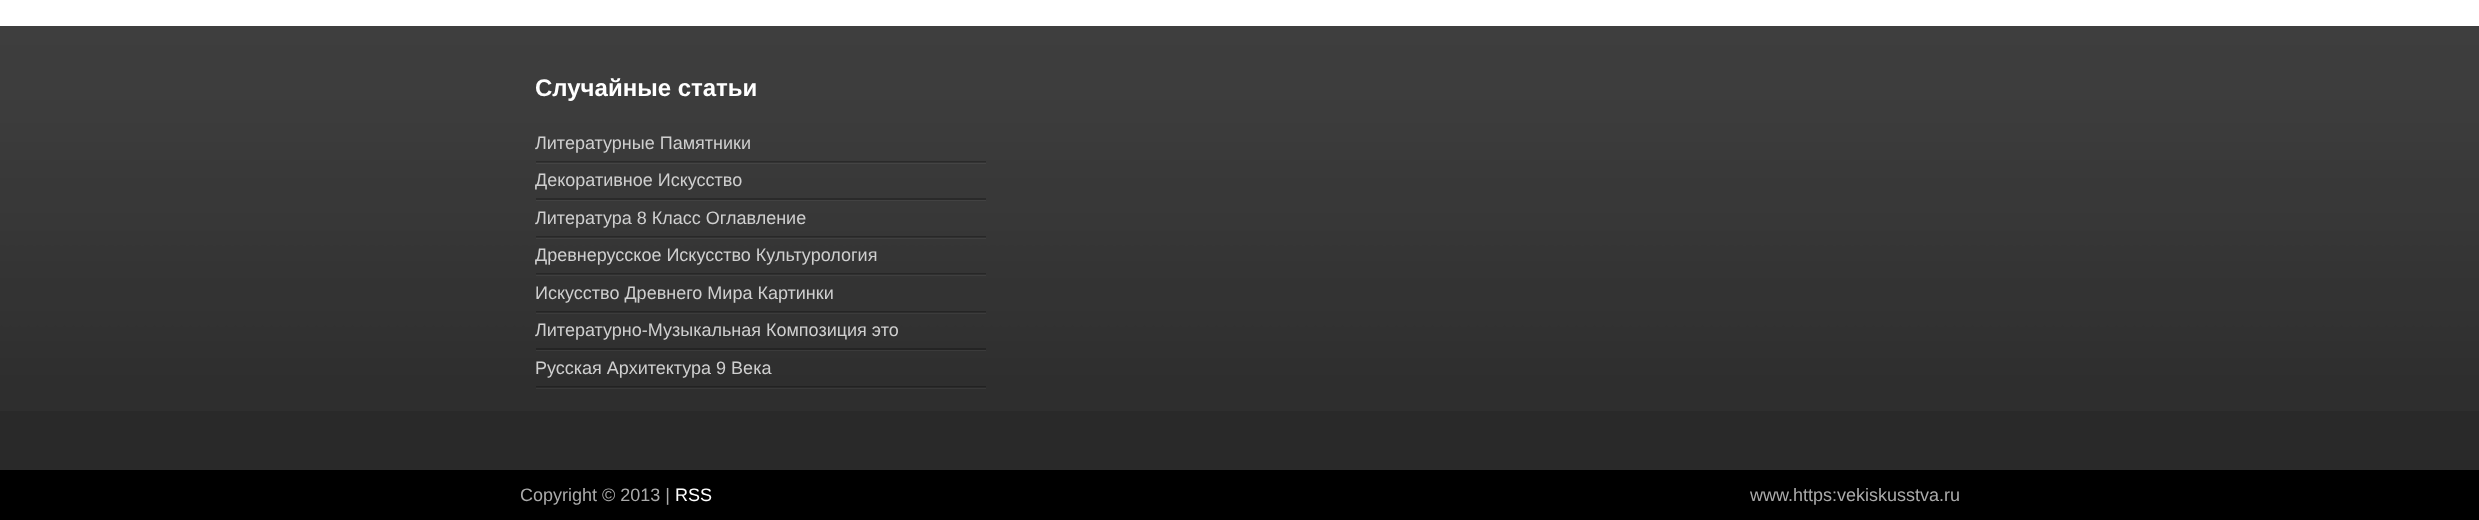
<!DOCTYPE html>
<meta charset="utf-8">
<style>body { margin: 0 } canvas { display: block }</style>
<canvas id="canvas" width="2479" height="520"></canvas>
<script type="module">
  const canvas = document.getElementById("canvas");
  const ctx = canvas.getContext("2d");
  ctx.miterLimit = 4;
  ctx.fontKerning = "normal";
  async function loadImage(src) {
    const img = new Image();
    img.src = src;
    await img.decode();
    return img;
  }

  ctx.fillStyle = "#ffffff";
  ctx.fillRect(0, 0, 2479, 520);
  ctx.fillStyle = "#292929";
  ctx.fillRect(0, 26, 2479, 444);
  ctx.drawImage(await loadImage("img1.png"), 0, 26, 2479, 385);
  ctx.font = "bold 24px Liberation Sans";
  ctx.fillStyle = "#ffffff";
  ctx.fillText("Случайные статьи", 535, 96);
  ctx.fillStyle = "#444444";
  ctx.beginPath();
  ctx.moveTo(536, 162);
  ctx.lineTo(536, 164);
  ctx.lineTo(986, 164);
  ctx.lineTo(986, 126);
  ctx.lineTo(986, 162);
  ctx.closePath();
  ctx.fill();
  ctx.fillStyle = "rgba(0, 0, 0, 0.25)";
  ctx.fillRect(536, 161, 450, 2);
  ctx.font = "18px Liberation Sans";
  ctx.fillStyle = "#cfcfcf";
  ctx.fillText("Литературные Памятники", 535, 149);
  ctx.fillStyle = "#424242";
  ctx.beginPath();
  ctx.moveTo(536, 200);
  ctx.lineTo(536, 201);
  ctx.lineTo(986, 201);
  ctx.lineTo(986, 164);
  ctx.lineTo(986, 200);
  ctx.closePath();
  ctx.fill();
  ctx.fillStyle = "#2a2a2a";
  ctx.fillRect(536, 198, 450, 2);
  ctx.fillStyle = "#cfcfcf";
  ctx.fillText("Декоративное Искусство", 535, 186);
  ctx.fillStyle = "#404040";
  ctx.beginPath();
  ctx.moveTo(536, 237);
  ctx.lineTo(536, 239);
  ctx.lineTo(986, 239);
  ctx.lineTo(986, 201);
  ctx.lineTo(986, 237);
  ctx.closePath();
  ctx.fill();
  ctx.fillStyle = "rgba(0, 0, 0, 0.25)";
  ctx.fillRect(536, 236, 450, 2);
  ctx.fillStyle = "#cfcfcf";
  ctx.fillText("Литература 8 Класс Оглавление", 535, 224);
  ctx.fillStyle = "#3f3f3f";
  ctx.beginPath();
  ctx.moveTo(536, 274);
  ctx.lineTo(536, 276);
  ctx.lineTo(986, 276);
  ctx.lineTo(986, 239);
  ctx.lineTo(986, 274);
  ctx.closePath();
  ctx.fill();
  ctx.fillStyle = "rgba(0, 0, 0, 0.25)";
  ctx.fillRect(536, 273, 450, 2);
  ctx.fillStyle = "#cfcfcf";
  ctx.fillText("Древнерусское Искусство Культурология", 535, 261);
  ctx.fillStyle = "#3c3c3c";
  ctx.beginPath();
  ctx.moveTo(536, 312);
  ctx.lineTo(536, 314);
  ctx.lineTo(986, 314);
  ctx.lineTo(986, 276);
  ctx.lineTo(986, 312);
  ctx.closePath();
  ctx.fill();
  ctx.fillStyle = "rgba(0, 0, 0, 0.25)";
  ctx.fillRect(536, 311, 450, 2);
  ctx.fillStyle = "#cfcfcf";
  ctx.fillText("Искусство Древнего Мира Картинки", 535, 299);
  ctx.fillStyle = "#3b3b3b";
  ctx.beginPath();
  ctx.moveTo(536, 350);
  ctx.lineTo(536, 351);
  ctx.lineTo(986, 351);
  ctx.lineTo(986, 314);
  ctx.lineTo(986, 350);
  ctx.closePath();
  ctx.fill();
  ctx.fillStyle = "#242424";
  ctx.fillRect(536, 348, 450, 2);
  ctx.fillStyle = "#cfcfcf";
  ctx.fillText("Литературно-Музыкальная Композиция это", 535, 336);
  ctx.fillStyle = "#393939";
  ctx.beginPath();
  ctx.moveTo(536, 387);
  ctx.lineTo(536, 389);
  ctx.lineTo(986, 389);
  ctx.lineTo(986, 351);
  ctx.lineTo(986, 387);
  ctx.closePath();
  ctx.fill();
  ctx.fillStyle = "rgba(0, 0, 0, 0.25)";
  ctx.fillRect(536, 386, 450, 2);
  ctx.fillStyle = "#cfcfcf";
  ctx.fillText("Русская Архитектура 9 Века", 535, 374);
  ctx.fillStyle = "#000000";
  ctx.fillRect(0, 470, 2479, 50);
  ctx.fillStyle = "#aaaaaa";
  ctx.fillText("Copyright © 2013 |", 520, 501);
  ctx.fillStyle = "#ffffff";
  ctx.fillText("RSS", 675, 501);
  ctx.fillStyle = "#aaaaaa";
  ctx.fillText("www.https:vekiskusstva.ru", 1750, 501);
</script>
